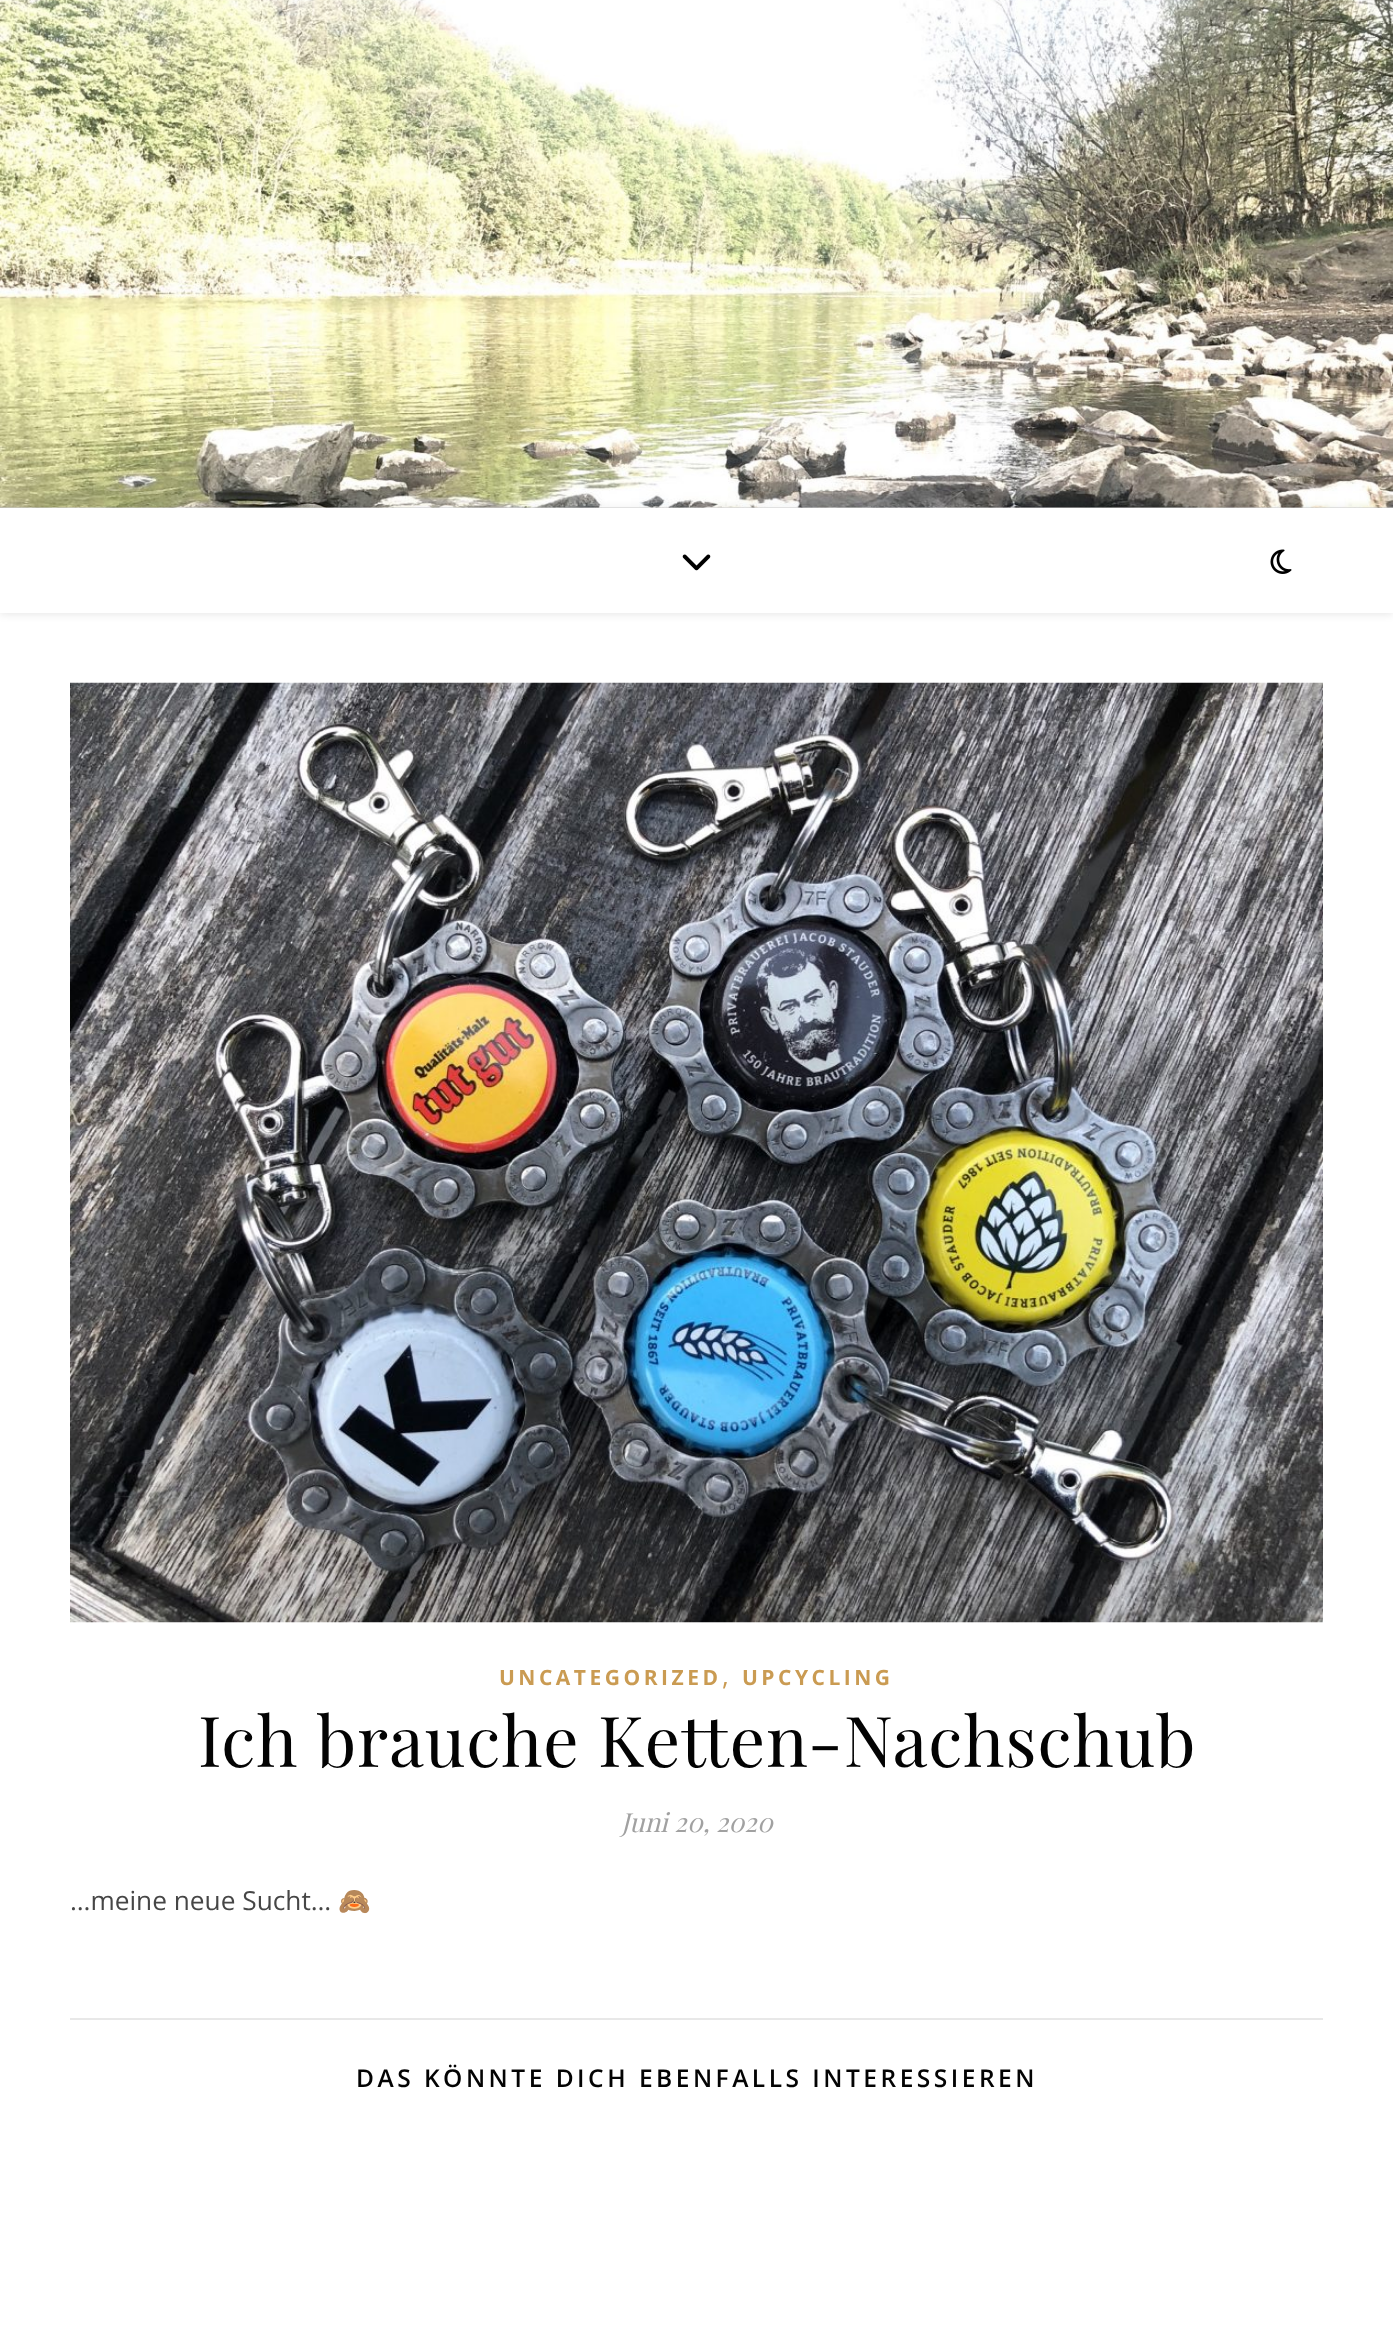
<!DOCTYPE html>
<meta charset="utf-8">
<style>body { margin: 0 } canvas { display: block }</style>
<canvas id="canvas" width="1393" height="2327"></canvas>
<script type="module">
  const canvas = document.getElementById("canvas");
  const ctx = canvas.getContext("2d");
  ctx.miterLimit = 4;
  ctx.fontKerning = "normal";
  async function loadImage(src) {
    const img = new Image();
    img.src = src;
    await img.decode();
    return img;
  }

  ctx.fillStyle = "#ffffff";
  ctx.fillRect(0, 0, 1393, 2327);
  ctx.fillStyle = "#d6d6d6";
  ctx.fillRect(0, 507, 1393, 1);
  ctx.drawImage(await loadImage("img1.png"), 0, 0, 1393, 508);
  ctx.fillStyle = "rgba(0, 0, 0, 0.1)";
  ctx.filter = "blur(4.5px)";
  ctx.beginPath();
  ctx.rect(0, 509, 1393, 105);
  ctx.fill();
  ctx.filter = "none";
  ctx.fillStyle = "#ffffff";
  ctx.fillRect(0, 508, 1393, 105);
  ctx.drawImage(await loadImage("img2.png"), 682, 554, 29, 17);
  ctx.drawImage(await loadImage("img3.png"), 1270, 549, 22, 25);
  ctx.drawImage(await loadImage("img4.png"), 70, 682, 1253, 941);
  ctx.letterSpacing = "3.5px";
  ctx.font = "bold 21px Open Sans";
  ctx.fillStyle = "#ca9b52";
  ctx.fillText("UNCATEGORIZED", 499, 1685);
  ctx.letterSpacing = "0px";
  ctx.font = "26.25px Open Sans";
  ctx.fillText(",", 722, 1685);
  ctx.letterSpacing = "3.5px";
  ctx.font = "bold 21px Open Sans";
  ctx.fillText("UPCYCLING", 742, 1685);
  ctx.letterSpacing = "0.9px";
  ctx.font = "70px Playfair Display";
  ctx.fillStyle = "#030303";
  ctx.fillText("Ich brauche Ketten-Nachschub", 198, 1767);
  ctx.letterSpacing = "0px";
  ctx.font = "italic 26.25px Playfair Display";
  ctx.fillStyle = "#a1a1a1";
  ctx.fillText("Juni 20, 2020", 621, 1832);
  ctx.font = "26.25px Open Sans";
  ctx.fillStyle = "#464646";
  ctx.fillText("…meine neue Sucht…", 70, 1910);
  ctx.font = "26.25px Noto Color Emoji";
  ctx.fillText("🙈", 338, 1910);
  ctx.fillStyle = "#e8e8e8";
  ctx.fillRect(70, 2018, 1253, 2);
  ctx.letterSpacing = "3.5px";
  ctx.font = "600 24.5px Open Sans";
  ctx.fillStyle = "#030303";
  ctx.fillText("DAS KÖNNTE DICH EBENFALLS INTERESSIEREN", 356, 2087);
</script>
